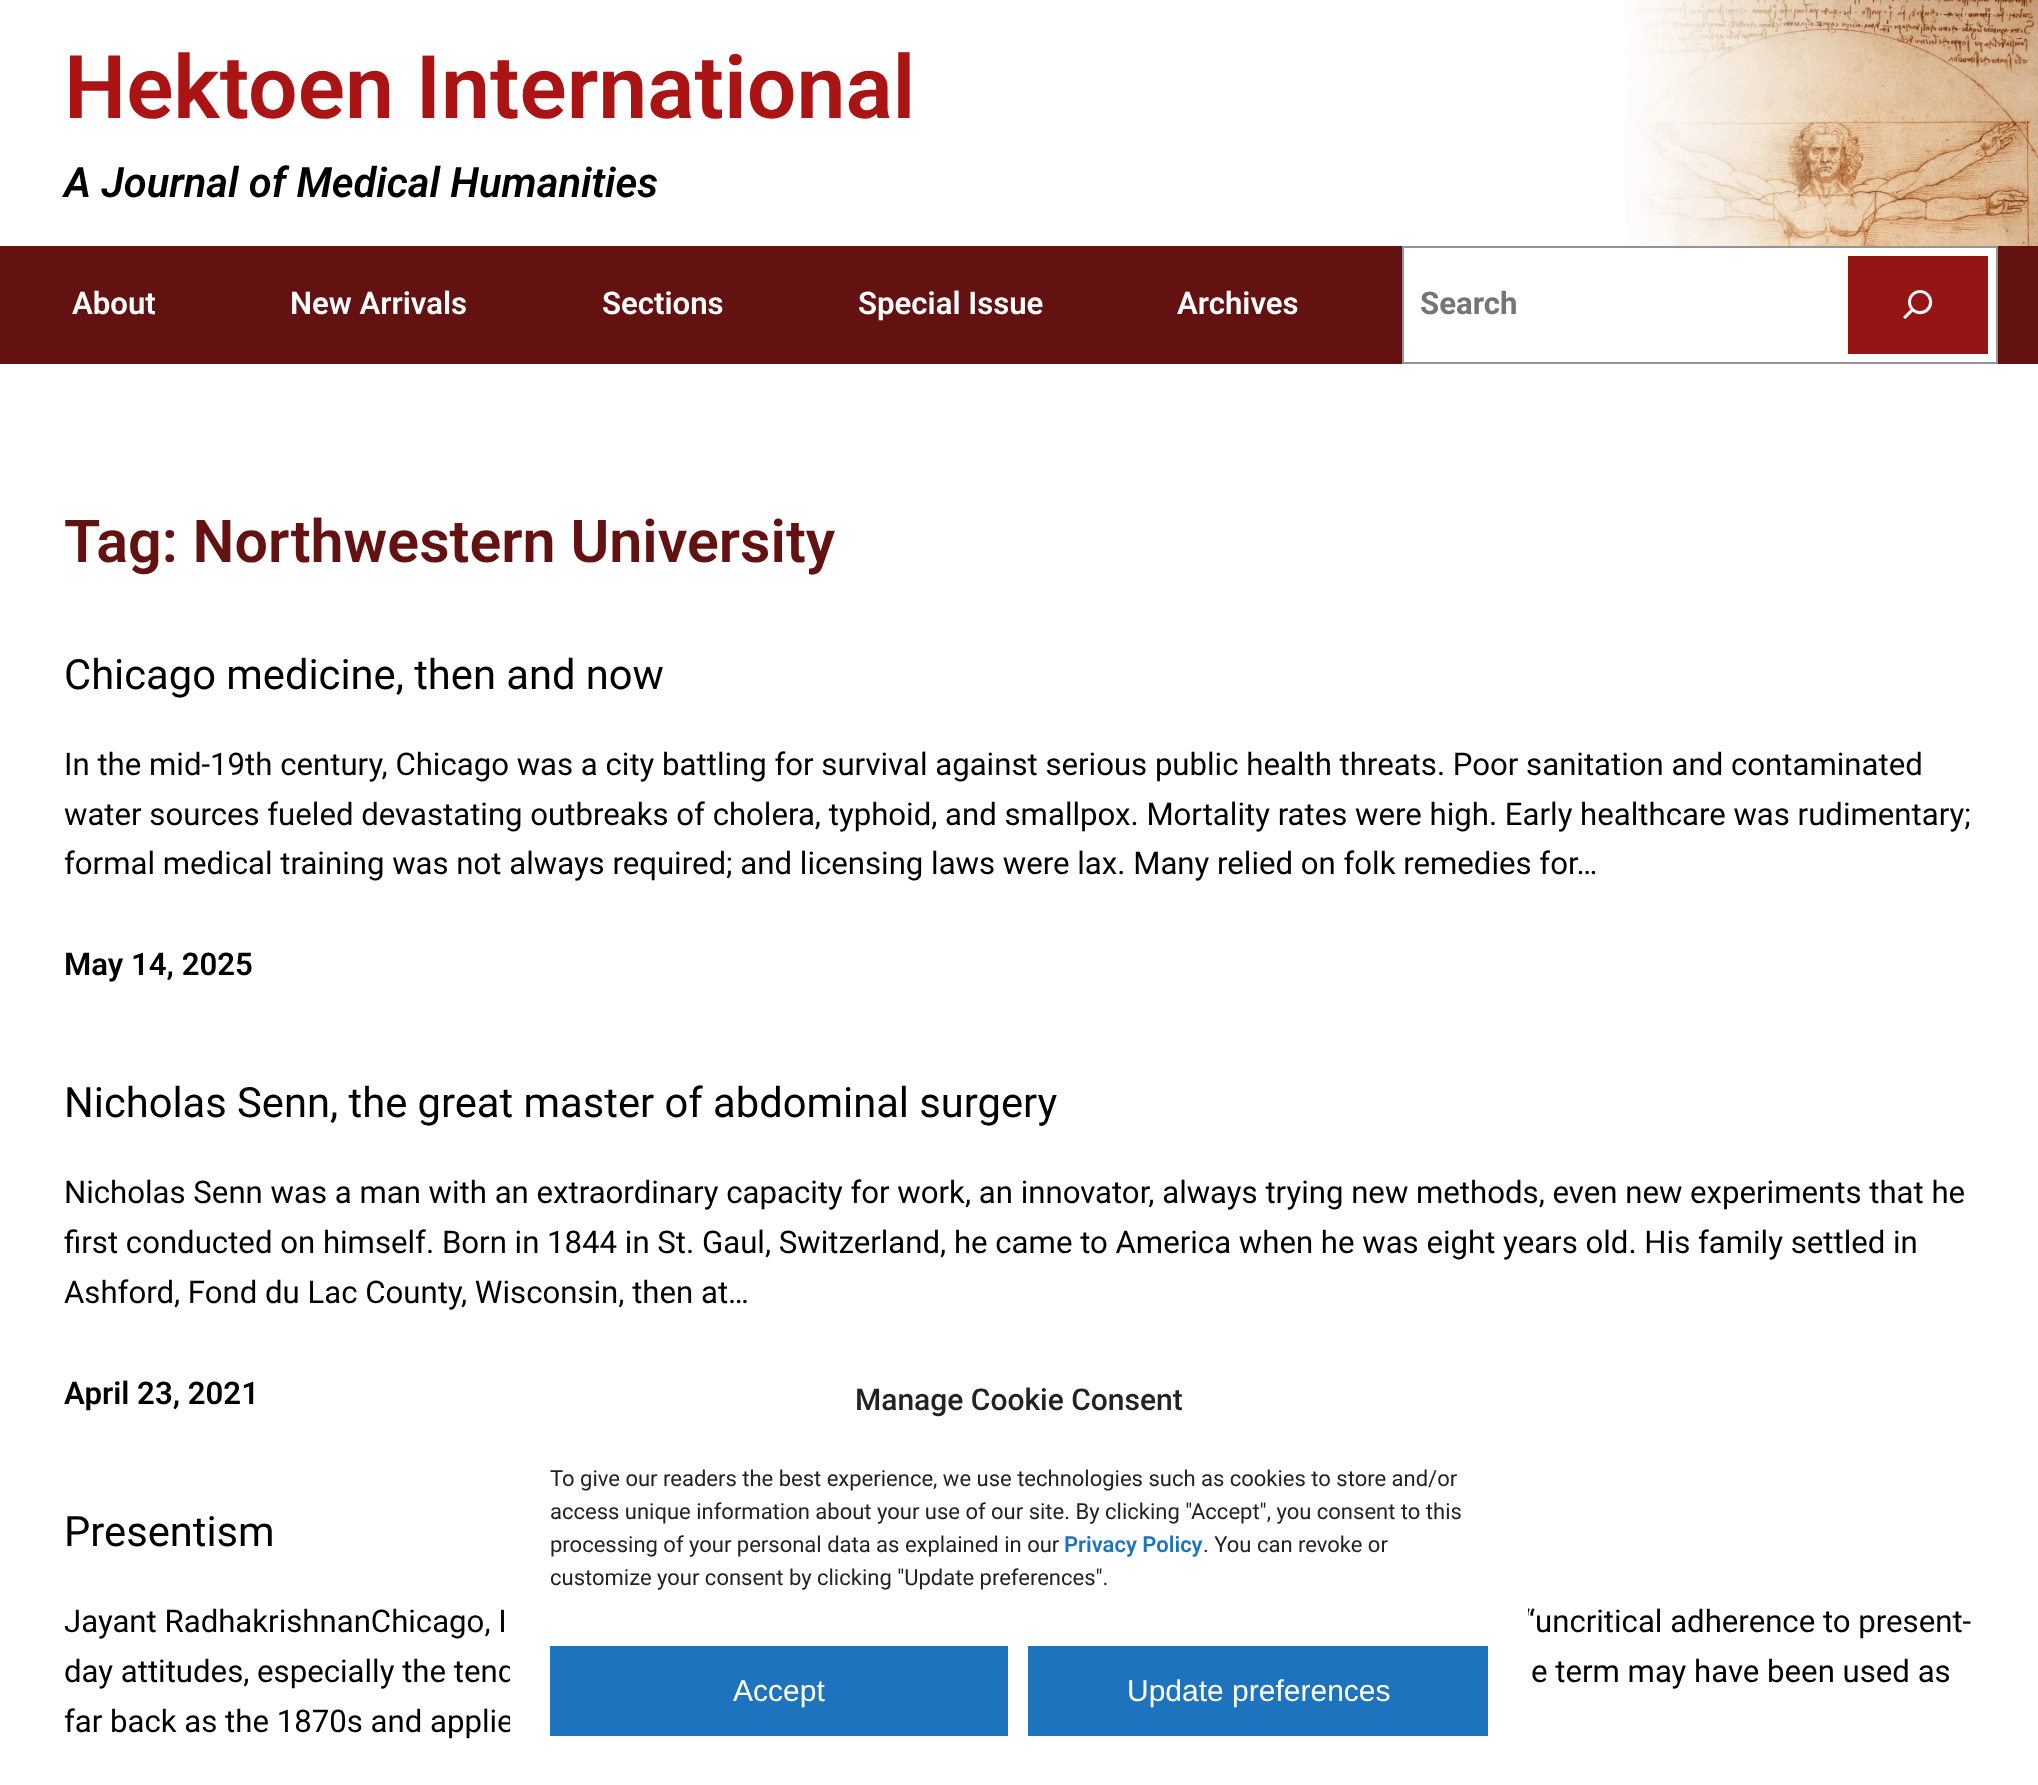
<!DOCTYPE html>
<meta charset="utf-8">
<style>body { margin: 0 } canvas { display: block }</style>
<canvas id="canvas" width="2038" height="1785"></canvas>
<script type="module">
  const canvas = document.getElementById("canvas");
  const ctx = canvas.getContext("2d");
  ctx.miterLimit = 4;
  ctx.fontKerning = "normal";
  async function loadImage(src) {
    const img = new Image();
    img.src = src;
    await img.decode();
    return img;
  }

  ctx.fillStyle = "#ffffff";
  ctx.fillRect(0, 0, 2038, 1785);
  ctx.font = "600 87.75px Roboto";
  ctx.fillStyle = "#aa1414";
  ctx.fillText("Hektoen International", 64, 118);
  ctx.font = "italic 600 41.7px Roboto";
  ctx.fillStyle = "#000000";
  ctx.fillText("A Journal of Medical Humanities", 64, 197);
  ctx.drawImage(await loadImage("img1.png"), 1624, 0, 414, 246);
  ctx.fillStyle = "#641111";
  ctx.fillRect(0, 246, 2038, 118);
  ctx.font = "600 31.17px Roboto";
  ctx.fillStyle = "#ffffff";
  ctx.fillText("About", 72, 314);
  ctx.fillText("New Arrivals", 290, 314);
  ctx.fillText("Sections", 602, 314);
  ctx.fillText("Special Issue", 858, 314);
  ctx.fillText("Archives", 1177, 314);
  ctx.beginPath();
  ctx.rect(1403, 247, 594, 116);
  ctx.fill();
  ctx.strokeStyle = "#949494";
  ctx.lineWidth = 2;
  ctx.stroke();
  ctx.font = "bold 31.17px Roboto";
  ctx.fillStyle = "#757575";
  ctx.fillText("Search", 1420, 314);
  ctx.fillStyle = "#951515";
  ctx.fillRect(1848, 256, 140, 98);
  ctx.drawImage(await loadImage("img2.png"), 1903, 290, 30, 30);
  ctx.font = "600 59.2px Roboto";
  ctx.fillStyle = "#641111";
  ctx.fillText("Tag: Northwestern University", 64, 562);
  ctx.font = "41.7px Roboto";
  ctx.fillStyle = "#000000";
  ctx.fillText("Chicago medicine, then and now", 64, 689);
  ctx.font = "31.17px Roboto";
  ctx.fillText("In the mid-19th century, Chicago was a city battling for survival against serious public health threats. Poor sanitation and contaminated", 64, 775);
  ctx.fillText("water sources fueled devastating outbreaks of cholera, typhoid, and smallpox. Mortality rates were high. Early healthcare was rudimentary;", 64, 825);
  ctx.fillText("formal medical training was not always required; and licensing laws were lax. Many relied on folk remedies for…", 64, 874);
  ctx.font = "600 31.17px Roboto";
  ctx.fillText("May 14, 2025", 64, 975);
  ctx.font = "41.7px Roboto";
  ctx.fillText("Nicholas Senn, the great master of abdominal surgery", 64, 1117);
  ctx.font = "31.17px Roboto";
  ctx.fillText("Nicholas Senn was a man with an extraordinary capacity for work, an innovator, always trying new methods, even new experiments that he", 64, 1203);
  ctx.fillText("first conducted on himself. Born in 1844 in St. Gaul, Switzerland, he came to America when he was eight years old. His family settled in", 64, 1253);
  ctx.fillText("Ashford, Fond du Lac County, Wisconsin, then at…", 64, 1303);
  ctx.font = "600 31.17px Roboto";
  ctx.fillText("April 23, 2021", 64, 1404);
  ctx.font = "41.7px Roboto";
  ctx.fillText("Presentism", 64, 1546);
  ctx.font = "31.17px Roboto";
  ctx.fillText("Jayant RadhakrishnanChicago, I", 64, 1632);
  ctx.fillText("“uncritical adherence to present-", 1524, 1632);
  ctx.fillText("day attitudes, especially the tend", 64, 1682);
  ctx.fillText("e term may have been used as", 1531, 1682);
  ctx.fillText("far back as the 1870s and applie", 64, 1732);
  ctx.fillStyle = "#ffffff";
  ctx.beginPath();
  ctx.roundRect(510, 1346, 1018, 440, 12);
  ctx.fill();
  ctx.font = "500 30px Roboto";
  ctx.fillStyle = "#222222";
  ctx.fillText("Manage Cookie Consent", 855, 1410);
  ctx.font = "22px Roboto";
  ctx.fillText("To give our readers the best experience, we use technologies such as cookies to store and/or", 550, 1486);
  ctx.fillText("access unique information about your use of our site. By clicking \"Accept\", you consent to this", 550, 1519);
  ctx.fillText("processing of your personal data as explained in our", 550, 1552);
  ctx.font = "600 22px Roboto";
  ctx.fillStyle = "#1e73be";
  ctx.fillText("Privacy Policy", 1064, 1552);
  ctx.font = "22px Roboto";
  ctx.fillStyle = "#222222";
  ctx.fillText(". You can revoke or", 1203, 1552);
  ctx.fillText("customize your consent by clicking \"Update preferences\".", 550, 1585);
  ctx.fillStyle = "#1e73be";
  ctx.fillRect(550, 1646, 458, 90);
  ctx.font = "30px Liberation Sans";
  ctx.fillStyle = "#ffffff";
  ctx.fillText("Accept", 733, 1701);
  ctx.fillStyle = "#1e73be";
  ctx.fillRect(1028, 1646, 460, 90);
  ctx.fillStyle = "#ffffff";
  ctx.fillText("Update preferences", 1127, 1701);
</script>
